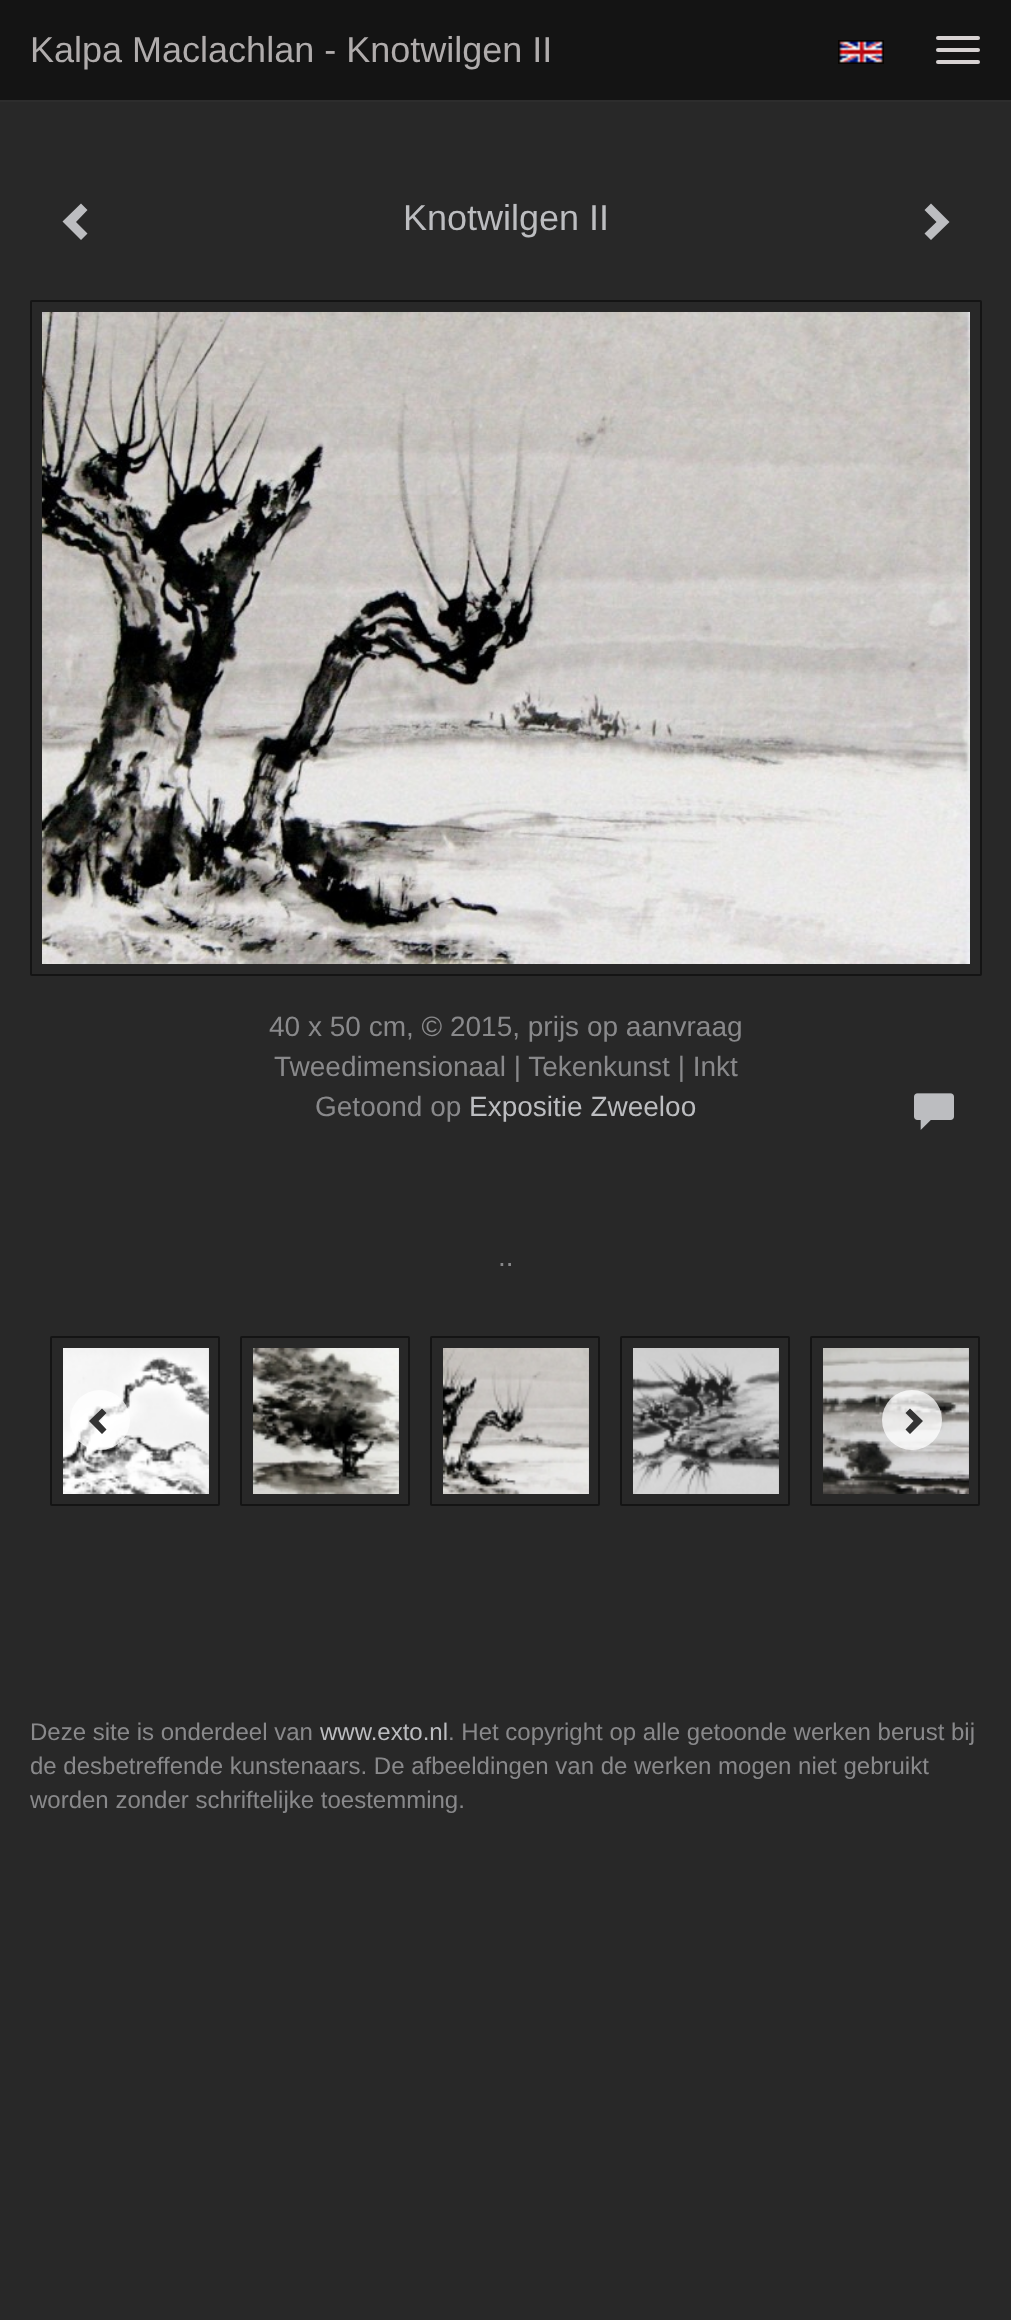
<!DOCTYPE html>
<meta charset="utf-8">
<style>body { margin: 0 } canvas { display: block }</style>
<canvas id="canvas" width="1011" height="2320"></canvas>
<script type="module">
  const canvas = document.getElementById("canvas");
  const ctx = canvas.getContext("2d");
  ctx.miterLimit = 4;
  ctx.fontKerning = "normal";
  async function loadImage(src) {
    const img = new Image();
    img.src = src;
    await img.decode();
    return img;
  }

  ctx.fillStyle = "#282828";
  ctx.fillRect(0, 0, 1011, 2320);
  ctx.fillStyle = "#141414";
  ctx.fillRect(0, 0, 1011, 100);
  ctx.fillStyle = "#2d2d2d";
  ctx.fillRect(0, 100, 1011, 2);
  ctx.font = "36px Liberation Sans";
  ctx.fillStyle = "#b0acac";
  ctx.fillText("Kalpa Maclachlan - Knotwilgen II", 30, 62);
  ctx.fillStyle = "#d7d2d2";
  ctx.beginPath();
  ctx.roundRect(936, 36, 44, 4, 2);
  ctx.fill();
  ctx.beginPath();
  ctx.roundRect(936, 48, 44, 4, 2);
  ctx.fill();
  ctx.beginPath();
  ctx.roundRect(936, 60, 44, 4, 2);
  ctx.fill();
  ctx.drawImage(await loadImage("img1.png"), 838, 40, 46, 24);
  ctx.fillStyle = "#bcbdc0";
  ctx.beginPath();
  ctx.moveTo(87.5, 210);
  ctx.lineTo(76, 222);
  ctx.lineTo(87.5, 233.5);
  ctx.lineTo(81, 240);
  ctx.lineTo(62.5, 221.5);
  ctx.lineTo(81, 203.5);
  ctx.closePath();
  ctx.fill();
  ctx.fillText("Knotwilgen II", 403, 230);
  ctx.beginPath();
  ctx.moveTo(949.5, 222);
  ctx.lineTo(931, 240);
  ctx.lineTo(924.5, 233.5);
  ctx.lineTo(936.5, 222);
  ctx.lineTo(924.5, 210);
  ctx.lineTo(931, 203.5);
  ctx.closePath();
  ctx.fill();
  ctx.beginPath();
  ctx.roundRect(31, 301, 950, 674, 1);
  ctx.strokeStyle = "#141414";
  ctx.lineWidth = 2;
  ctx.stroke();
  ctx.drawImage(await loadImage("img2.png"), 42, 312, 928, 652);
  ctx.font = "28px Liberation Sans";
  ctx.fillStyle = "#89898b";
  ctx.fillText("40 x 50 cm, © 2015, prijs op aanvraag", 269, 1036);
  ctx.fillText("Tweedimensionaal | Tekenkunst | Inkt", 274, 1076);
  ctx.fillText("Getoond op", 315, 1116);
  ctx.fillStyle = "#bcbdc0";
  ctx.fillText("Expositie Zweeloo", 469, 1116);
  ctx.drawImage(await loadImage("img3.png"), 914, 1093, 40, 37);
  ctx.fillStyle = "#89898b";
  ctx.fillText("..", 498, 1266);
  ctx.beginPath();
  ctx.roundRect(51, 1337, 168, 168, 1);
  ctx.stroke();
  ctx.drawImage(await loadImage("img4.png"), 63, 1348, 146, 146);
  ctx.beginPath();
  ctx.roundRect(241, 1337, 168, 168, 1);
  ctx.stroke();
  ctx.drawImage(await loadImage("img5.png"), 253, 1348, 146, 146);
  ctx.beginPath();
  ctx.roundRect(431, 1337, 168, 168, 1);
  ctx.stroke();
  ctx.drawImage(await loadImage("img6.png"), 443, 1348, 146, 146);
  ctx.beginPath();
  ctx.roundRect(621, 1337, 168, 168, 1);
  ctx.stroke();
  ctx.drawImage(await loadImage("img7.png"), 633, 1348, 146, 146);
  ctx.beginPath();
  ctx.roundRect(811, 1337, 168, 168, 1);
  ctx.stroke();
  ctx.drawImage(await loadImage("img8.png"), 823, 1348, 146, 146);
  ctx.fillStyle = "rgba(255, 255, 255, 0.75)";
  ctx.beginPath();
  ctx.arc(100, 1420, 30, 0, Math.PI * 2);
  ctx.fill();
  ctx.fillStyle = "#333333";
  ctx.beginPath();
  ctx.moveTo(106.5, 1413);
  ctx.lineTo(98.5, 1421);
  ctx.lineTo(106.5, 1429.5);
  ctx.lineTo(102, 1434);
  ctx.lineTo(89, 1421);
  ctx.lineTo(102, 1408.5);
  ctx.closePath();
  ctx.fill();
  ctx.fillStyle = "rgba(255, 255, 255, 0.75)";
  ctx.beginPath();
  ctx.arc(912, 1420, 30, 0, Math.PI * 2);
  ctx.fill();
  ctx.fillStyle = "#333333";
  ctx.beginPath();
  ctx.moveTo(923, 1421);
  ctx.lineTo(910, 1434);
  ctx.lineTo(905.5, 1429.5);
  ctx.lineTo(913.5, 1421);
  ctx.lineTo(905.5, 1413);
  ctx.lineTo(910, 1408.5);
  ctx.closePath();
  ctx.fill();
  ctx.font = "24px Liberation Sans";
  ctx.fillStyle = "#89898b";
  ctx.fillText("Deze site is onderdeel van", 30, 1740);
  ctx.fillStyle = "#bcbdc0";
  ctx.fillText("www.exto.nl", 320, 1740);
  ctx.fillStyle = "#89898b";
  ctx.fillText(". Het copyright op alle getoonde werken berust bij", 448, 1740);
  ctx.fillText("de desbetreffende kunstenaars. De afbeeldingen van de werken mogen niet gebruikt", 30, 1774);
  ctx.fillText("worden zonder schriftelijke toestemming.", 30, 1808);
</script>
